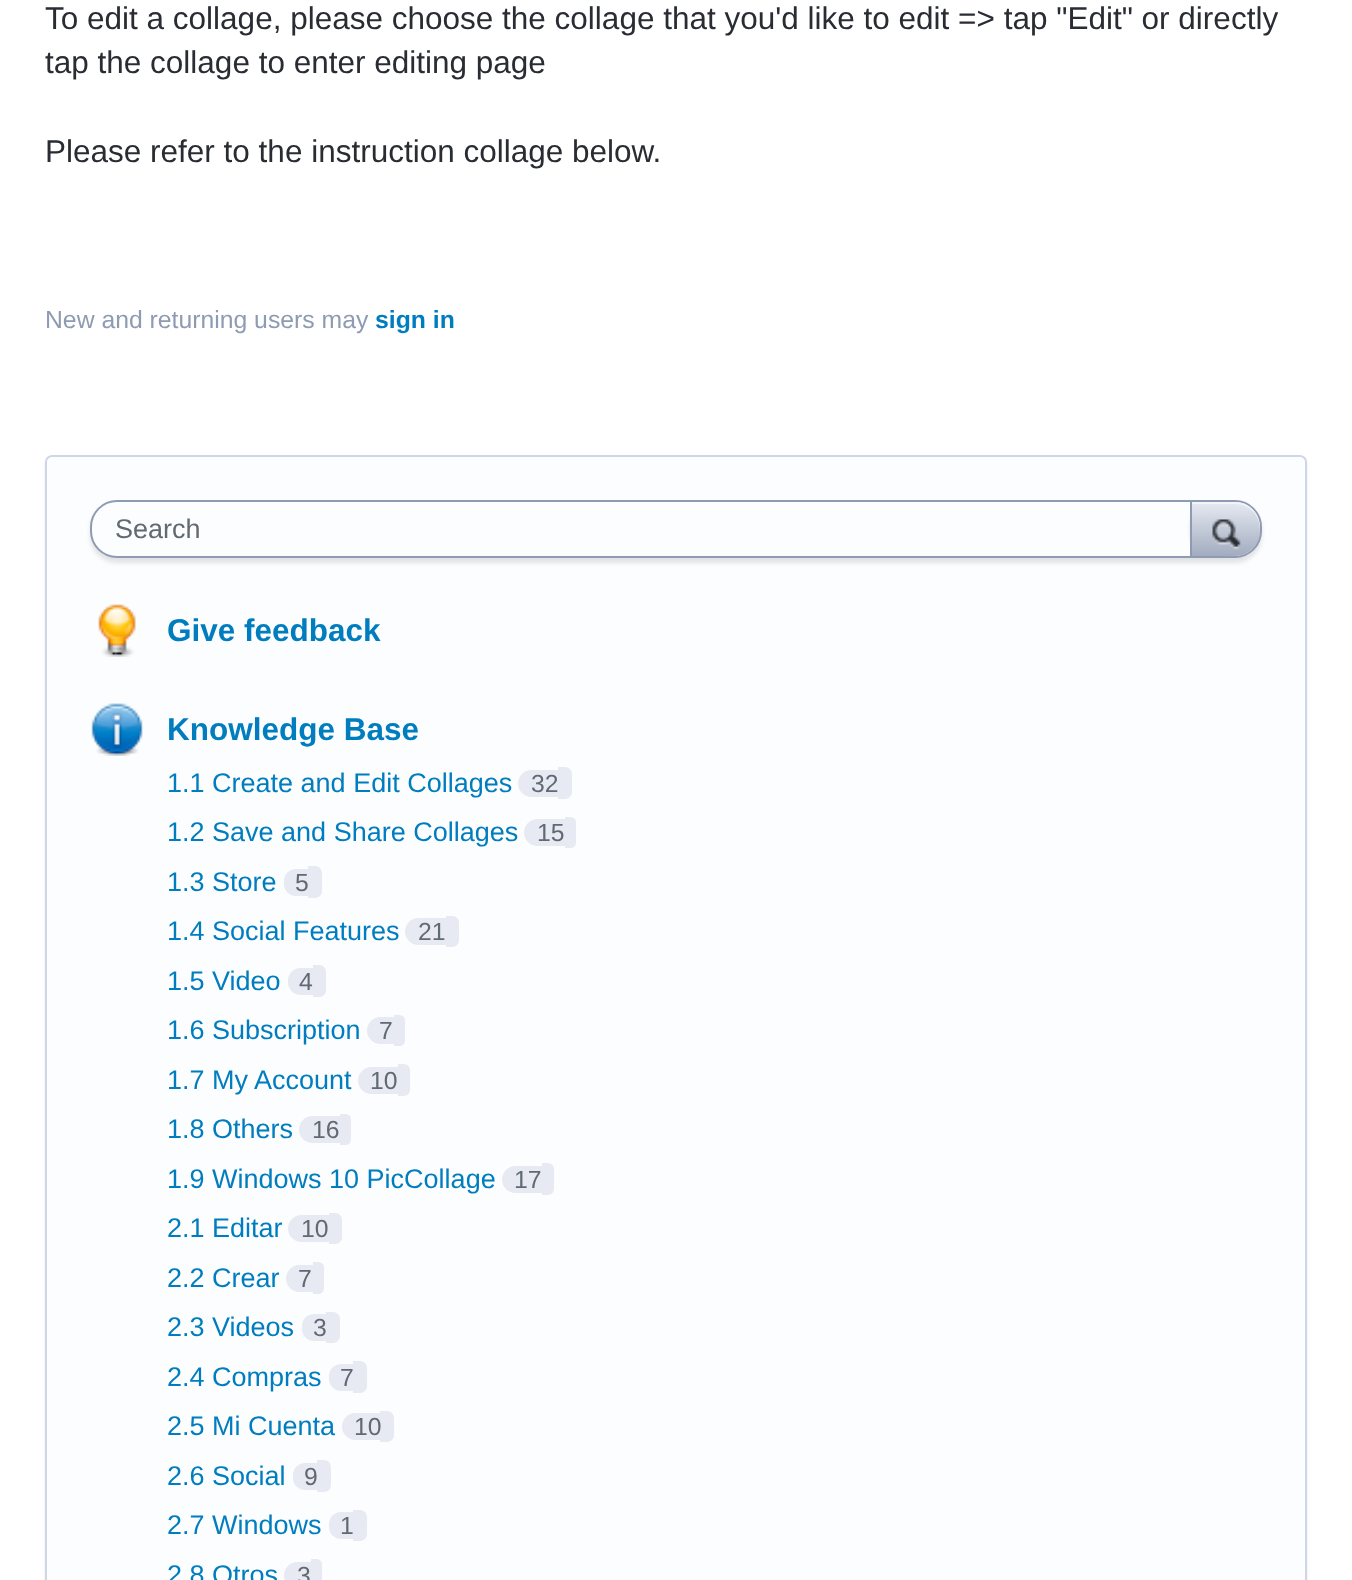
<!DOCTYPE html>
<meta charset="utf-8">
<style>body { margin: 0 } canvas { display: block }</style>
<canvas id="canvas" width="1352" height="1580"></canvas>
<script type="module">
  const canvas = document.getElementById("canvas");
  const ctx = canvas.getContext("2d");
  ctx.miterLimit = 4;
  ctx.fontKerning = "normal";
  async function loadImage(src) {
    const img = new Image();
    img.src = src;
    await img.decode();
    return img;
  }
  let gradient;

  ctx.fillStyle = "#ffffff";
  ctx.fillRect(0, 0, 1352, 1580);
  ctx.font = "31.5px Liberation Sans";
  ctx.fillStyle = "#292c33";
  ctx.fillText("To edit a collage, please choose the collage that you'd like to edit => tap \"Edit\" or directly", 45, 29);
  ctx.fillText("tap the collage to enter editing page", 45, 73);
  ctx.fillText("Please refer to the instruction collage below.", 45, 162);
  ctx.font = "24.75px Liberation Sans";
  ctx.fillStyle = "#8f9bb3";
  ctx.fillText("New and returning users may", 45, 328);
  ctx.font = "bold 24.75px Liberation Sans";
  ctx.fillStyle = "#007dbf";
  ctx.fillText("sign in", 375, 328);
  ctx.fillStyle = "rgba(0, 0, 0, 0.1)";
  ctx.filter = "blur(1px)";
  ctx.beginPath();
  ctx.roundRect(45, 457, 1262, 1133, 7);
  ctx.fill();
  ctx.filter = "none";
  ctx.fillStyle = "#fcfdff";
  ctx.beginPath();
  ctx.roundRect(46, 456, 1260, 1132, 6);
  ctx.fill();
  ctx.strokeStyle = "#cfd7e6";
  ctx.lineWidth = 2;
  ctx.stroke();
  ctx.fillStyle = "rgba(0, 0, 0, 0.1)";
  ctx.filter = "blur(2px)";
  ctx.beginPath();
  ctx.roundRect(90, 504, 1172, 59, 27);
  ctx.fill();
  ctx.filter = "none";
  ctx.fillStyle = "#fcfdff";
  ctx.beginPath();
  ctx.roundRect(91, 501, 1170, 56, 26);
  ctx.fill();
  ctx.strokeStyle = "#8f9bb3";
  ctx.stroke();
  ctx.font = "27px Liberation Sans";
  ctx.fillStyle = "#616973";
  ctx.fillText("Search", 115, 538);
  ctx.save();
  ctx.beginPath();
  ctx.roundRect(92, 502, 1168, 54, 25);
  ctx.clip();
  ctx.fillStyle = "rgba(0, 0, 0, 0.1)";
  ctx.filter = "blur(2px)";
  ctx.beginPath();
  ctx.roundRect(1190, 502, 72, 56, 27);
  ctx.fill();
  ctx.filter = "none";
  ctx.restore();
  gradient = ctx.createLinearGradient(1193, 502, 1193, 556);
  gradient.addColorStop(0, "#e6eaf2");
  gradient.addColorStop(1, "#a2acbf");
  ctx.fillStyle = gradient;
  ctx.beginPath();
  ctx.moveTo(1192, 502);
  ctx.lineTo(1192, 556);
  ctx.lineTo(1221, 556);
  ctx.bezierCurveTo(1229, 556, 1237, 557, 1245, 554);
  ctx.bezierCurveTo(1269, 543, 1263, 502, 1235, 502);
  ctx.closePath();
  ctx.fill();
  ctx.fillStyle = "rgba(255, 255, 255, 0.5)";
  ctx.beginPath();
  ctx.moveTo(1192, 504);
  ctx.lineTo(1192, 502);
  ctx.lineTo(1235, 502);
  ctx.bezierCurveTo(1249, 502, 1260, 513, 1260, 527);
  ctx.lineTo(1260, 529);
  ctx.bezierCurveTo(1260, 515, 1249, 504, 1235, 504);
  ctx.closePath();
  ctx.fill();
  ctx.fillStyle = "#8f9bb3";
  ctx.beginPath();
  ctx.moveTo(1260, 529);
  ctx.lineTo(1260, 531);
  ctx.bezierCurveTo(1260, 543.5, 1250.5, 554, 1238.5, 556);
  ctx.bezierCurveTo(1251, 554, 1260, 542.5, 1260, 529);
  ctx.closePath();
  ctx.fill();
  ctx.fillRect(1190, 502, 2, 54);
  ctx.drawImage(await loadImage("img1.png"), 1212, 519, 29, 31);
  ctx.drawImage(await loadImage("img2.png"), 98, 604, 38, 53);
  ctx.font = "bold 31.5px Liberation Sans";
  ctx.fillStyle = "#007dbf";
  ctx.fillText("Give feedback", 167, 641);
  ctx.drawImage(await loadImage("img3.png"), 91, 703, 52, 53);
  ctx.fillText("Knowledge Base", 167, 740);
  ctx.font = "27px Liberation Sans";
  ctx.fillText("1.1 Create and Edit Collages", 167, 792);
  ctx.fillStyle = "#e7eaf2";
  ctx.beginPath();
  ctx.roundRect(518, 770, 40, 27, [13.5, 0, 0, 13.5]);
  ctx.fill();
  ctx.font = "24.75px Liberation Sans";
  ctx.fillStyle = "#616973";
  ctx.fillText("32", 531, 792);
  ctx.fillStyle = "#e7eaf2";
  ctx.beginPath();
  ctx.roundRect(558, 767, 14, 32, [0, 7, 7, 0]);
  ctx.fill();
  ctx.font = "27px Liberation Sans";
  ctx.fillStyle = "#007dbf";
  ctx.fillText("1.2 Save and Share Collages", 167, 841);
  ctx.fillStyle = "#e7eaf2";
  ctx.beginPath();
  ctx.roundRect(524, 819, 41, 27, [13.5, 0, 0, 13.5]);
  ctx.fill();
  ctx.font = "24.75px Liberation Sans";
  ctx.fillStyle = "#616973";
  ctx.fillText("15", 537, 841);
  ctx.fillStyle = "#e7eaf2";
  ctx.beginPath();
  ctx.roundRect(565, 817, 11, 31, [0, 5.5, 5.5, 0]);
  ctx.fill();
  ctx.font = "27px Liberation Sans";
  ctx.fillStyle = "#007dbf";
  ctx.fillText("1.3 Store", 167, 891);
  ctx.fillStyle = "#e7eaf2";
  ctx.beginPath();
  ctx.roundRect(284, 869, 24, 27, [12, 0, 0, 12]);
  ctx.fill();
  ctx.font = "24.75px Liberation Sans";
  ctx.fillStyle = "#616973";
  ctx.fillText("5", 295, 891);
  ctx.fillStyle = "#e7eaf2";
  ctx.beginPath();
  ctx.roundRect(308, 866, 14, 32, [0, 7, 7, 0]);
  ctx.fill();
  ctx.font = "27px Liberation Sans";
  ctx.fillStyle = "#007dbf";
  ctx.fillText("1.4 Social Features", 167, 940);
  ctx.fillStyle = "#e7eaf2";
  ctx.beginPath();
  ctx.roundRect(405, 918, 41, 27, [13.5, 0, 0, 13.5]);
  ctx.fill();
  ctx.font = "24.75px Liberation Sans";
  ctx.fillStyle = "#616973";
  ctx.fillText("21", 418, 940);
  ctx.fillStyle = "#e7eaf2";
  ctx.beginPath();
  ctx.roundRect(446, 916, 13, 31, [0, 6.5, 6.5, 0]);
  ctx.fill();
  ctx.font = "27px Liberation Sans";
  ctx.fillStyle = "#007dbf";
  ctx.fillText("1.5 Video", 167, 990);
  ctx.fillStyle = "#e7eaf2";
  ctx.beginPath();
  ctx.roundRect(288, 968, 25, 27, [12.5, 0, 0, 12.5]);
  ctx.fill();
  ctx.font = "24.75px Liberation Sans";
  ctx.fillStyle = "#616973";
  ctx.fillText("4", 299, 990);
  ctx.fillStyle = "#e7eaf2";
  ctx.beginPath();
  ctx.roundRect(313, 965, 13, 32, [0, 6.5, 6.5, 0]);
  ctx.fill();
  ctx.font = "27px Liberation Sans";
  ctx.fillStyle = "#007dbf";
  ctx.fillText("1.6 Subscription", 167, 1039);
  ctx.fillStyle = "#e7eaf2";
  ctx.beginPath();
  ctx.roundRect(367, 1017, 27, 27, [13.5, 0, 0, 13.5]);
  ctx.fill();
  ctx.font = "24.75px Liberation Sans";
  ctx.fillStyle = "#616973";
  ctx.fillText("7", 379, 1039);
  ctx.fillStyle = "#e7eaf2";
  ctx.beginPath();
  ctx.roundRect(394, 1015, 11, 31, [0, 5.5, 5.5, 0]);
  ctx.fill();
  ctx.font = "27px Liberation Sans";
  ctx.fillStyle = "#007dbf";
  ctx.fillText("1.7 My Account", 167, 1089);
  ctx.fillStyle = "#e7eaf2";
  ctx.beginPath();
  ctx.roundRect(358, 1067, 40, 27, [13.5, 0, 0, 13.5]);
  ctx.fill();
  ctx.font = "24.75px Liberation Sans";
  ctx.fillStyle = "#616973";
  ctx.fillText("10", 370, 1089);
  ctx.fillStyle = "#e7eaf2";
  ctx.beginPath();
  ctx.roundRect(398, 1064, 12, 32, [0, 6, 6, 0]);
  ctx.fill();
  ctx.font = "27px Liberation Sans";
  ctx.fillStyle = "#007dbf";
  ctx.fillText("1.8 Others", 167, 1138);
  ctx.fillStyle = "#e7eaf2";
  ctx.beginPath();
  ctx.roundRect(299, 1116, 41, 27, [13.5, 0, 0, 13.5]);
  ctx.fill();
  ctx.font = "24.75px Liberation Sans";
  ctx.fillStyle = "#616973";
  ctx.fillText("16", 312, 1138);
  ctx.fillStyle = "#e7eaf2";
  ctx.beginPath();
  ctx.roundRect(340, 1114, 11, 31, [0, 5.5, 5.5, 0]);
  ctx.fill();
  ctx.font = "27px Liberation Sans";
  ctx.fillStyle = "#007dbf";
  ctx.fillText("1.9 Windows 10 PicCollage", 167, 1188);
  ctx.fillStyle = "#e7eaf2";
  ctx.beginPath();
  ctx.roundRect(502, 1166, 40, 27, [13.5, 0, 0, 13.5]);
  ctx.fill();
  ctx.font = "24.75px Liberation Sans";
  ctx.fillStyle = "#616973";
  ctx.fillText("17", 514, 1188);
  ctx.fillStyle = "#e7eaf2";
  ctx.beginPath();
  ctx.roundRect(542, 1163, 12, 32, [0, 6, 6, 0]);
  ctx.fill();
  ctx.font = "27px Liberation Sans";
  ctx.fillStyle = "#007dbf";
  ctx.fillText("2.1 Editar", 167, 1237);
  ctx.fillStyle = "#e7eaf2";
  ctx.beginPath();
  ctx.roundRect(288, 1215, 41, 27, [13.5, 0, 0, 13.5]);
  ctx.fill();
  ctx.font = "24.75px Liberation Sans";
  ctx.fillStyle = "#616973";
  ctx.fillText("10", 301, 1237);
  ctx.fillStyle = "#e7eaf2";
  ctx.beginPath();
  ctx.roundRect(329, 1213, 13, 31, [0, 6.5, 6.5, 0]);
  ctx.fill();
  ctx.font = "27px Liberation Sans";
  ctx.fillStyle = "#007dbf";
  ctx.fillText("2.2 Crear", 167, 1287);
  ctx.fillStyle = "#e7eaf2";
  ctx.beginPath();
  ctx.roundRect(286, 1265, 27, 27, [13.5, 0, 0, 13.5]);
  ctx.fill();
  ctx.font = "24.75px Liberation Sans";
  ctx.fillStyle = "#616973";
  ctx.fillText("7", 298, 1287);
  ctx.fillStyle = "#e7eaf2";
  ctx.beginPath();
  ctx.roundRect(313, 1262, 11, 32, [0, 5.5, 5.5, 0]);
  ctx.fill();
  ctx.font = "27px Liberation Sans";
  ctx.fillStyle = "#007dbf";
  ctx.fillText("2.3 Videos", 167, 1336);
  ctx.fillStyle = "#e7eaf2";
  ctx.beginPath();
  ctx.roundRect(302, 1314, 24, 27, [12, 0, 0, 12]);
  ctx.fill();
  ctx.font = "24.75px Liberation Sans";
  ctx.fillStyle = "#616973";
  ctx.fillText("3", 313, 1336);
  ctx.fillStyle = "#e7eaf2";
  ctx.beginPath();
  ctx.roundRect(326, 1312, 14, 31, [0, 7, 7, 0]);
  ctx.fill();
  ctx.font = "27px Liberation Sans";
  ctx.fillStyle = "#007dbf";
  ctx.fillText("2.4 Compras", 167, 1386);
  ctx.fillStyle = "#e7eaf2";
  ctx.beginPath();
  ctx.roundRect(329, 1364, 24, 27, [12, 0, 0, 12]);
  ctx.fill();
  ctx.font = "24.75px Liberation Sans";
  ctx.fillStyle = "#616973";
  ctx.fillText("7", 340, 1386);
  ctx.fillStyle = "#e7eaf2";
  ctx.beginPath();
  ctx.roundRect(353, 1361, 14, 32, [0, 7, 7, 0]);
  ctx.fill();
  ctx.font = "27px Liberation Sans";
  ctx.fillStyle = "#007dbf";
  ctx.fillText("2.5 Mi Cuenta", 167, 1435);
  ctx.fillStyle = "#e7eaf2";
  ctx.beginPath();
  ctx.roundRect(342, 1413, 38, 27, [13.5, 0, 0, 13.5]);
  ctx.fill();
  ctx.beginPath();
  ctx.roundRect(380, 1411, 14, 31, [0, 7, 7, 0]);
  ctx.fill();
  ctx.font = "24.75px Liberation Sans";
  ctx.fillStyle = "#616973";
  ctx.fillText("10", 354, 1435);
  ctx.font = "27px Liberation Sans";
  ctx.fillStyle = "#007dbf";
  ctx.fillText("2.6 Social", 167, 1485);
  ctx.fillStyle = "#e7eaf2";
  ctx.beginPath();
  ctx.roundRect(293, 1463, 24, 27, [12, 0, 0, 12]);
  ctx.fill();
  ctx.font = "24.75px Liberation Sans";
  ctx.fillStyle = "#616973";
  ctx.fillText("9", 304, 1485);
  ctx.fillStyle = "#e7eaf2";
  ctx.beginPath();
  ctx.roundRect(317, 1460, 14, 32, [0, 7, 7, 0]);
  ctx.fill();
  ctx.font = "27px Liberation Sans";
  ctx.fillStyle = "#007dbf";
  ctx.fillText("2.7 Windows", 167, 1534);
  ctx.fillStyle = "#e7eaf2";
  ctx.beginPath();
  ctx.roundRect(329, 1512, 24, 27, [12, 0, 0, 12]);
  ctx.fill();
  ctx.font = "24.75px Liberation Sans";
  ctx.fillStyle = "#616973";
  ctx.fillText("1", 340, 1534);
  ctx.fillStyle = "#e7eaf2";
  ctx.beginPath();
  ctx.roundRect(353, 1510, 14, 31, [0, 7, 7, 0]);
  ctx.fill();
  ctx.font = "27px Liberation Sans";
  ctx.fillStyle = "#007dbf";
  ctx.fillText("2.8 Otros", 167, 1584);
  ctx.fillStyle = "#e7eaf2";
  ctx.beginPath();
  ctx.moveTo(297.5, 1562);
  ctx.lineTo(311, 1562);
  ctx.lineTo(311, 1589);
  ctx.lineTo(297.5, 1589);
  ctx.bezierCurveTo(290, 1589, 284, 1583, 284, 1575.5);
  ctx.bezierCurveTo(284, 1568, 290, 1562, 297.5, 1562);
  ctx.closePath();
  ctx.fill();
  ctx.font = "24.75px Liberation Sans";
  ctx.fillStyle = "#616973";
  ctx.fillText("3", 297, 1584);
  ctx.fillStyle = "#e7eaf2";
  ctx.beginPath();
  ctx.moveTo(311, 1559);
  ctx.lineTo(316.5, 1559);
  ctx.bezierCurveTo(319.5, 1559, 322, 1561.5, 322, 1564.5);
  ctx.lineTo(322, 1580.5);
  ctx.bezierCurveTo(322, 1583.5, 319.5, 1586, 316.5, 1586);
  ctx.lineTo(311, 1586);
  ctx.closePath();
  ctx.fill();
</script>
